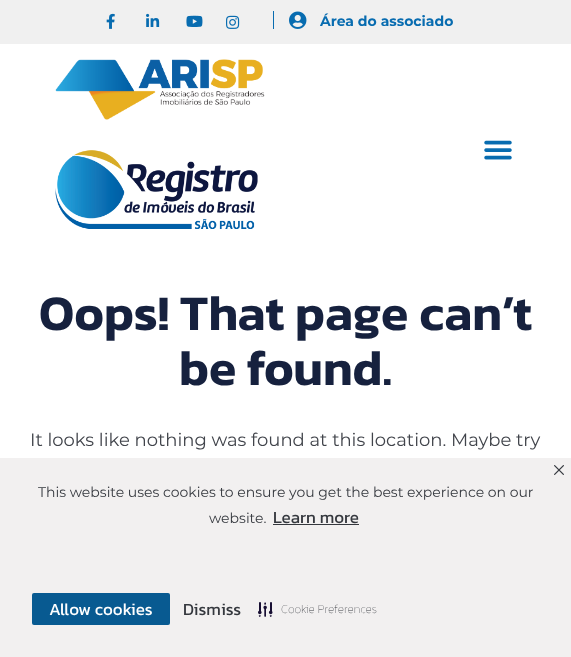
<!DOCTYPE html>
<meta charset="utf-8">
<style>body { margin: 0 } canvas { display: block }</style>
<canvas id="canvas" width="571" height="657"></canvas>
<script type="module">
  const canvas = document.getElementById("canvas");
  const ctx = canvas.getContext("2d");
  ctx.miterLimit = 4;
  ctx.fontKerning = "normal";
  async function loadImage(src) {
    const img = new Image();
    img.src = src;
    await img.decode();
    return img;
  }

  ctx.fillStyle = "#ffffff";
  ctx.fillRect(0, 0, 571, 657);
  ctx.fillStyle = "#f0f0f0";
  ctx.fillRect(0, 0, 571, 44);
  ctx.drawImage(await loadImage("img1.png"), 106, 13, 9, 16);
  ctx.drawImage(await loadImage("img2.png"), 146, 13, 14, 14);
  ctx.drawImage(await loadImage("img3.png"), 186, 15, 17, 12);
  ctx.drawImage(await loadImage("img4.png"), 226, 15, 14, 14);
  ctx.fillStyle = "#086cb0";
  ctx.fillRect(273, 11, 1, 18);
  ctx.drawImage(await loadImage("img5.png"), 289, 11, 18, 18);
  ctx.font = "bold 14px Montserrat";
  ctx.fillText("Área do associado", 320, 26);
  ctx.drawImage(await loadImage("img6.png"), 55, 59, 210, 61);
  ctx.drawImage(await loadImage("img7.png"), 55, 150, 203, 79);
  ctx.drawImage(await loadImage("img8.png"), 484, 140, 28, 20);
  ctx.font = "600 50px Kanit";
  ctx.fillStyle = "#16213e";
  ctx.fillText("Oops! That page can’t", 39, 330);
  ctx.fillText("be found.", 179, 385);
  ctx.font = "18px Montserrat";
  ctx.fillStyle = "#41444b";
  ctx.fillText("It looks like nothing was found at this location. Maybe try", 30, 446);
  ctx.fillStyle = "#f2f0f0";
  ctx.fillRect(0, 458, 571, 199);
  ctx.font = "14px Montserrat";
  ctx.fillStyle = "#35383e";
  ctx.fillText("This website uses cookies to ensure you get the best experience on our", 38, 497);
  ctx.fillText("website.", 209, 523);
  ctx.font = "17px Kanit";
  ctx.fillText("Learn more", 273, 523);
  ctx.fillRect(273, 524, 86, 1);
  ctx.drawImage(await loadImage("img9.png"), 554, 465, 10, 10);
  ctx.fillStyle = "#085a91";
  ctx.beginPath();
  ctx.roundRect(32, 593, 138, 32, 2);
  ctx.fill();
  ctx.fillStyle = "#ffffff";
  ctx.fillText("Allow cookies", 49, 615);
  ctx.fillStyle = "#35383e";
  ctx.fillText("Dismiss", 183, 615);
  ctx.drawImage(await loadImage("img10.png"), 258, 602, 15, 15);
  ctx.font = "100 12px Kanit";
  ctx.fillText("Cookie Preferences", 281, 613);
</script>
